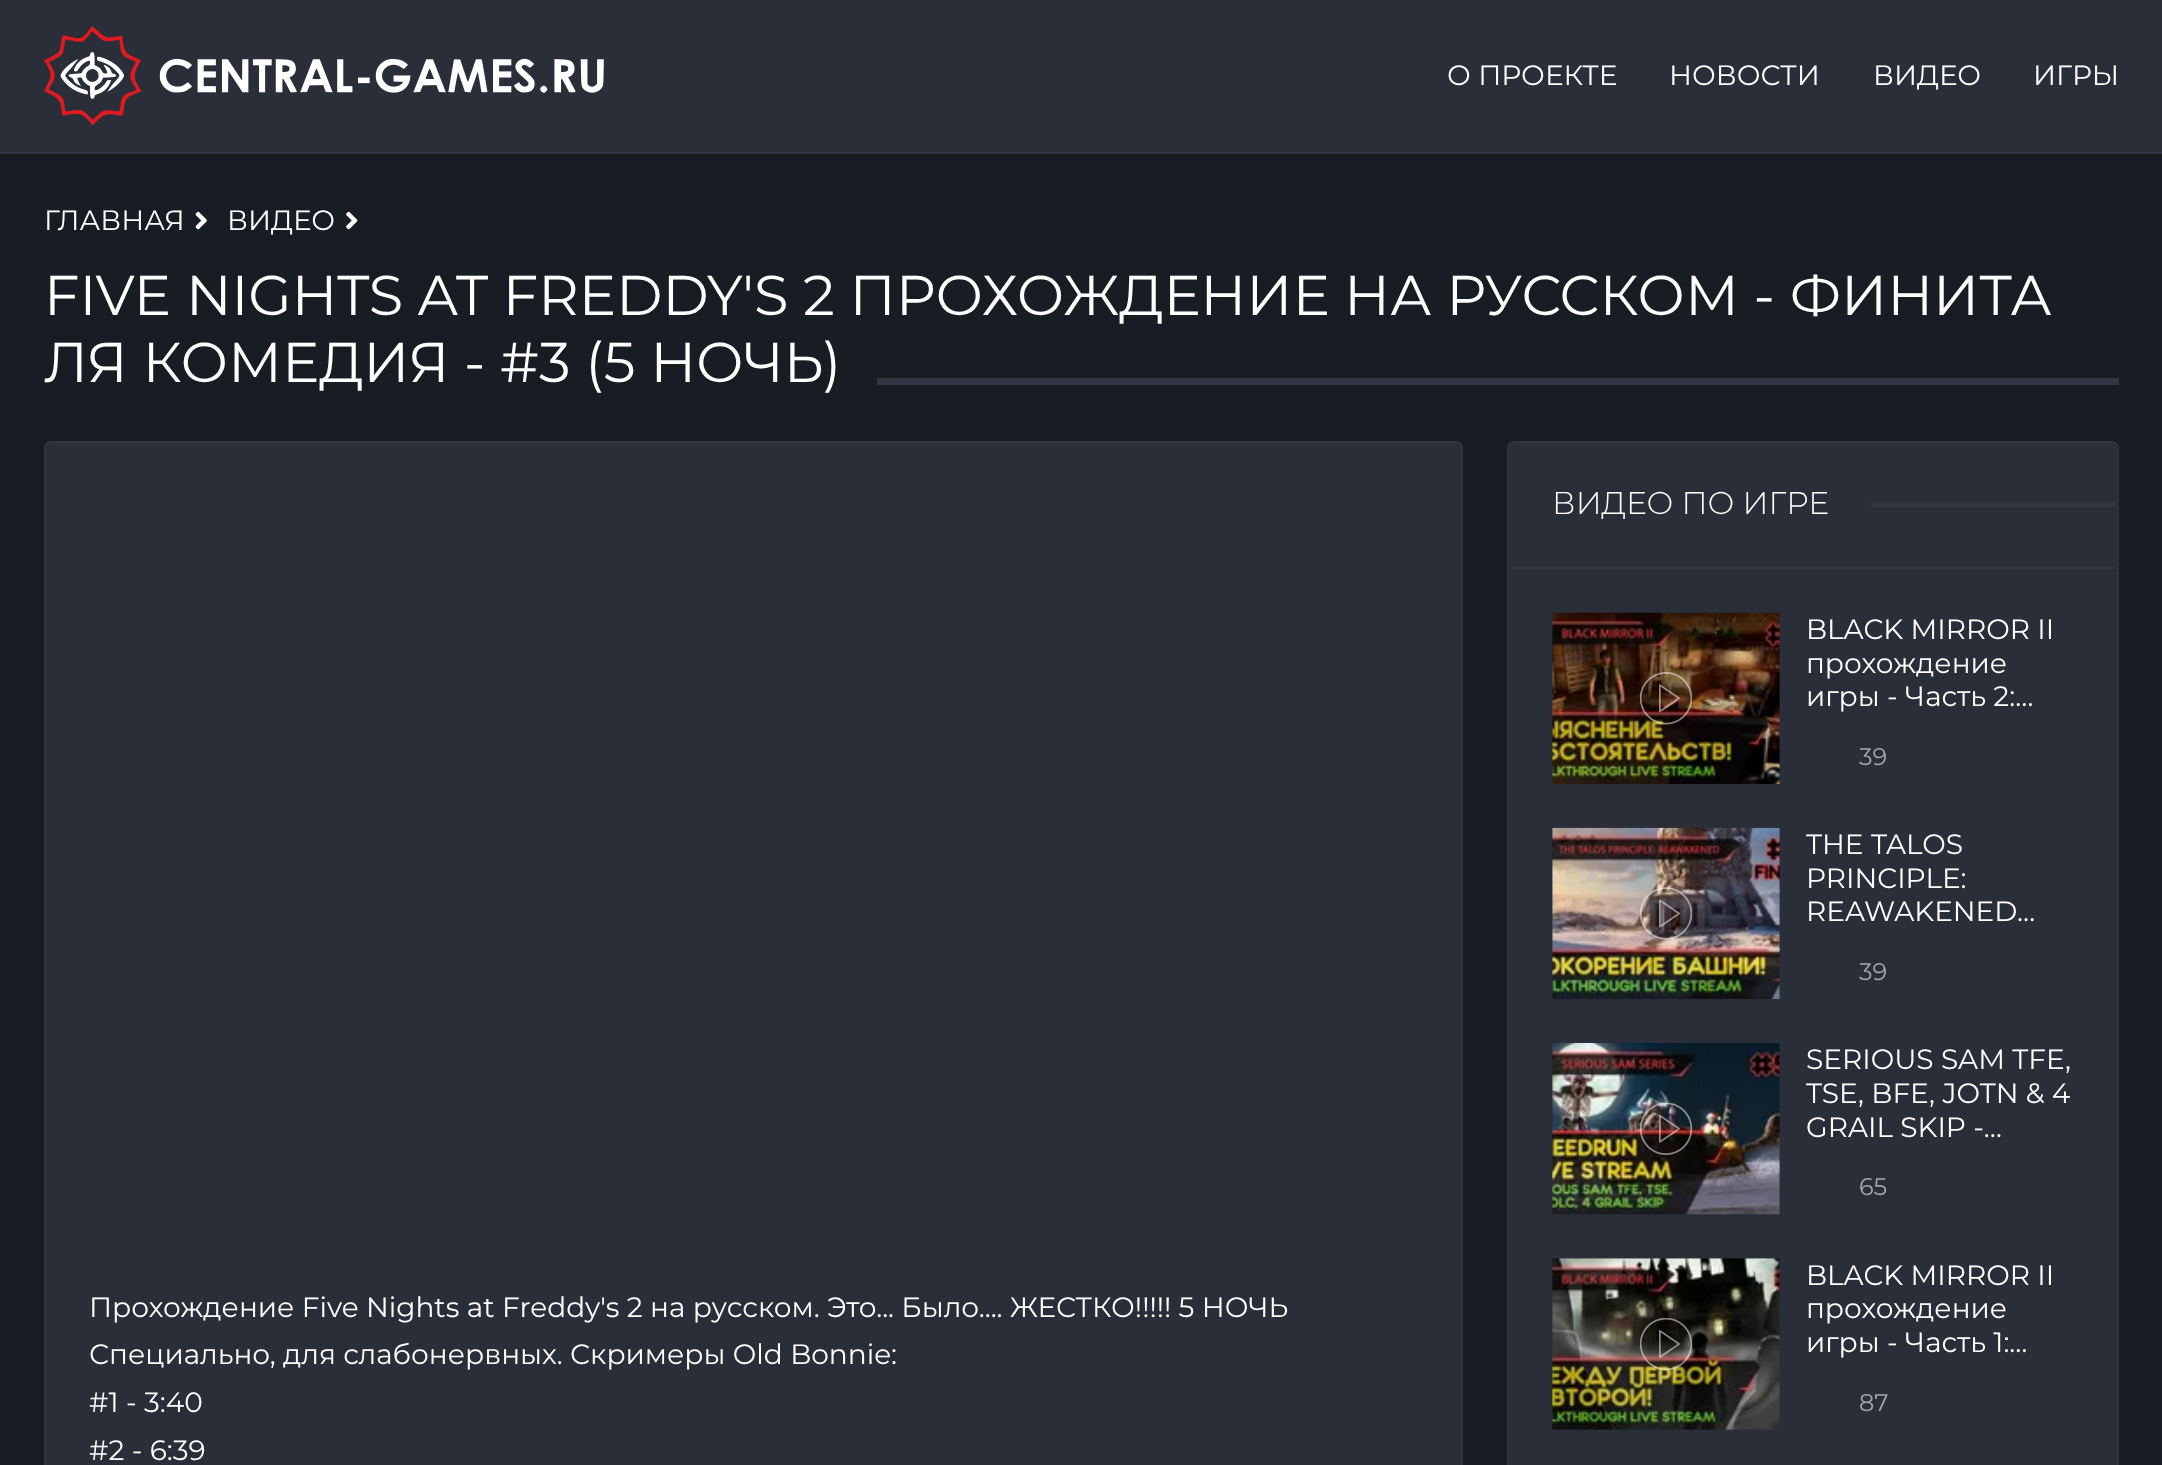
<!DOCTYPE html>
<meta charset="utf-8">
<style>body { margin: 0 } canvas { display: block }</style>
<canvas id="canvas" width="2162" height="1465"></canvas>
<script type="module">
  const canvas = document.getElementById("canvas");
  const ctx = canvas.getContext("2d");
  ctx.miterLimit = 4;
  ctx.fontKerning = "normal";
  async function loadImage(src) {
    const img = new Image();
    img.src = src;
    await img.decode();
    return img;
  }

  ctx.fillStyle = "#181c23";
  ctx.fillRect(0, 0, 2162, 1465);
  ctx.fillStyle = "#292e38";
  ctx.fillRect(0, 0, 2162, 152);
  ctx.fillStyle = "#2f3541";
  ctx.fillRect(0, 152, 2162, 2);
  ctx.drawImage(await loadImage("img1.png"), 44, 26, 560, 100);
  ctx.font = "28px Montserrat";
  ctx.fillStyle = "#ffffff";
  ctx.fillText("О ПРОЕКТЕ", 1447, 85);
  ctx.fillText("НОВОСТИ", 1669, 85);
  ctx.fillText("ВИДЕО", 1873, 85);
  ctx.fillText("ИГРЫ", 2033, 85);
  ctx.fillText("ГЛАВНАЯ", 44, 230);
  ctx.drawImage(await loadImage("img2.png"), 195, 211, 12, 19);
  ctx.fillText("ВИДЕО", 227, 230);
  ctx.drawImage(await loadImage("img3.png"), 346, 211, 12, 19);
  ctx.font = "56px Montserrat";
  ctx.fillText("FIVE NIGHTS AT FREDDY'S 2 ПРОХОЖДЕНИЕ НА РУССКОМ - ФИНИТА", 44, 315);
  ctx.fillText("ЛЯ КОМЕДИЯ - #3 (5 НОЧЬ)", 44, 382);
  ctx.fillStyle = "#2f3541";
  ctx.fillRect(877, 378, 1242, 7);
  ctx.fillStyle = "#292e38";
  ctx.beginPath();
  ctx.roundRect(45, 442, 1417, 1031, 6);
  ctx.fill();
  ctx.strokeStyle = "#2f3541";
  ctx.lineWidth = 2;
  ctx.stroke();
  ctx.font = "28px Montserrat";
  ctx.fillStyle = "#ffffff";
  ctx.fillText("Прохождение Five Nights at Freddy's 2 на русском. Это... Было.... ЖЕСТКО!!!!! 5 НОЧЬ", 89, 1317);
  ctx.fillText("Специально, для слабонервных. Скримеры Old Bonnie:", 89, 1364);
  ctx.fillText("#1 - 3:40", 89, 1412);
  ctx.fillText("#2 - 6:39", 89, 1460);
  ctx.fillStyle = "#292e38";
  ctx.beginPath();
  ctx.roundRect(1508, 442, 610, 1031, 6);
  ctx.fill();
  ctx.stroke();
  ctx.beginPath();
  ctx.roundRect(1509, 443, 609, 126, [5, 5, 0, 0]);
  ctx.fill();
  ctx.fillStyle = "#2f3541";
  ctx.fillRect(1509, 567, 609, 2);
  ctx.font = "300 31.5px Montserrat";
  ctx.fillStyle = "#ffffff";
  ctx.fillText("ВИДЕО ПО ИГРЕ", 1552, 514);
  ctx.fillStyle = "#2f3541";
  ctx.fillRect(1871, 502, 245, 5);
  ctx.drawImage(await loadImage("img4.png"), 1552, 612, 228, 172);
  ctx.drawImage(await loadImage("img5.png"), 1640, 672, 52, 53);
  ctx.font = "28px Montserrat";
  ctx.fillStyle = "#ffffff";
  ctx.fillText("BLACK MIRROR II", 1806, 639);
  ctx.fillText("прохождение", 1806, 673);
  ctx.fillText("игры - Часть 2:…", 1806, 706);
  ctx.font = "24px Montserrat";
  ctx.fillStyle = "#a0a7ab";
  ctx.fillText("39", 1859, 765);
  ctx.drawImage(await loadImage("img6.png"), 1552, 827, 228, 173);
  ctx.drawImage(await loadImage("img7.png"), 1640, 887, 52, 53);
  ctx.font = "28px Montserrat";
  ctx.fillStyle = "#ffffff";
  ctx.fillText("THE TALOS", 1806, 854);
  ctx.fillText("PRINCIPLE:", 1806, 888);
  ctx.fillText("REAWAKENED…", 1806, 921);
  ctx.font = "24px Montserrat";
  ctx.fillStyle = "#a0a7ab";
  ctx.fillText("39", 1859, 980);
  ctx.drawImage(await loadImage("img8.png"), 1552, 1043, 228, 172);
  ctx.drawImage(await loadImage("img9.png"), 1640, 1103, 52, 52);
  ctx.font = "28px Montserrat";
  ctx.fillStyle = "#ffffff";
  ctx.fillText("SERIOUS SAM TFE,", 1806, 1069);
  ctx.fillText("TSE, BFE, JOTN & 4", 1806, 1103);
  ctx.fillText("GRAIL SKIP -…", 1806, 1137);
  ctx.font = "24px Montserrat";
  ctx.fillStyle = "#a0a7ab";
  ctx.fillText("65", 1859, 1195);
  ctx.drawImage(await loadImage("img10.png"), 1552, 1258, 228, 172);
  ctx.drawImage(await loadImage("img11.png"), 1640, 1318, 52, 52);
  ctx.font = "28px Montserrat";
  ctx.fillStyle = "#ffffff";
  ctx.fillText("BLACK MIRROR II", 1806, 1285);
  ctx.fillText("прохождение", 1806, 1318);
  ctx.fillText("игры - Часть 1:…", 1806, 1352);
  ctx.font = "24px Montserrat";
  ctx.fillStyle = "#a0a7ab";
  ctx.fillText("87", 1859, 1411);
</script>
